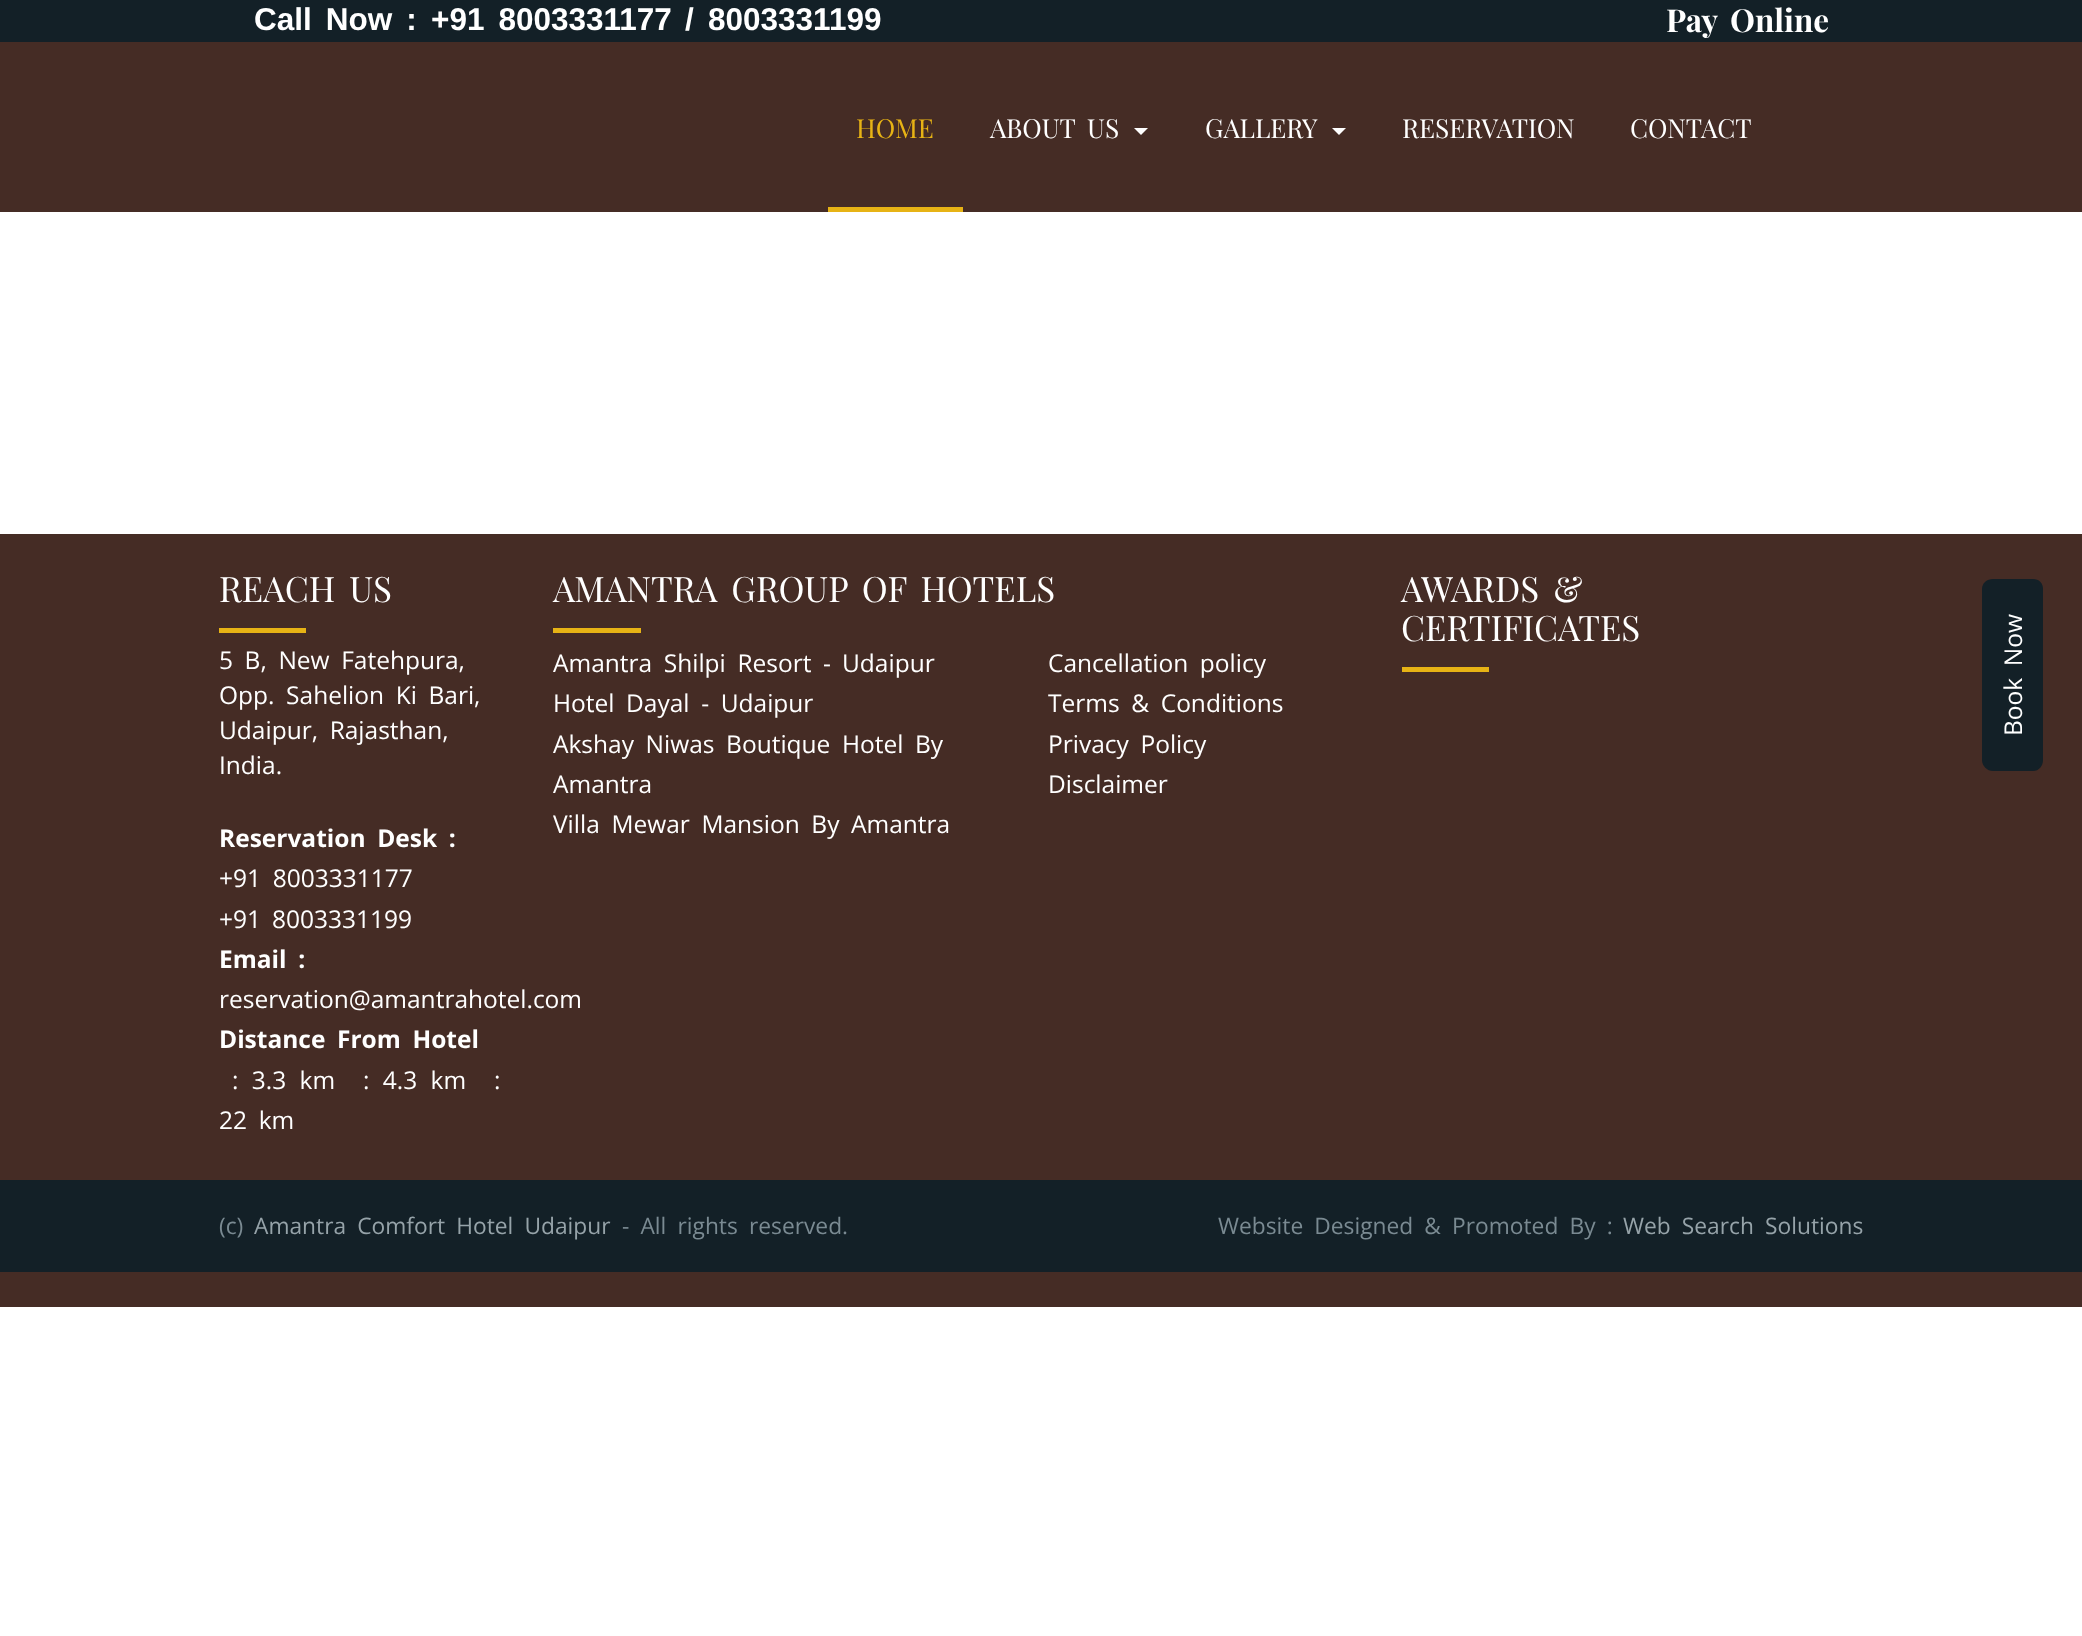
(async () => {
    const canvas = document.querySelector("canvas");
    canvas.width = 2082;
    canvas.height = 1636;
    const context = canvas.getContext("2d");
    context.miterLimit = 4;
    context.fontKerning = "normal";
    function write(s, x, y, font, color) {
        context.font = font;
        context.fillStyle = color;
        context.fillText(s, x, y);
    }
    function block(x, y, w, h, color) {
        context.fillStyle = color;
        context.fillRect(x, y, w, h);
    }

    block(0, 0, 2082, 1636, "rgb(255, 255, 255)");
    block(0, 42, 2082, 170, "rgb(69, 44, 37)");
    block(0, 0, 2082, 42, "rgb(19, 32, 39)");
    context.wordSpacing = "5.25px";
    write("Call Now :", 254, 30, "bold 31.5px Liberation Sans", "rgb(255, 255, 255)");
    write("+91 8003331177", 431, 30, "bold 31.5px Liberation Sans", "rgb(255, 255, 255)");
    context.wordSpacing = "0px";
    write("/", 685, 30, "bold 31.5px Liberation Sans", "rgb(255, 255, 255)");
    write("8003331199", 708, 30, "bold 31.5px Liberation Sans", "rgb(255, 255, 255)");
    context.wordSpacing = "5.25px";
    write("Pay Online", 1666, 32, "bold 31.5px Playfair Display", "rgb(255, 255, 255)");
    block(828, 207, 135, 5, "rgb(231, 179, 21)");
    context.wordSpacing = "0px";
    write("HOME", 856, 138, "26.25px Playfair Display", "rgb(231, 179, 21)");
    context.wordSpacing = "5.25px";
    write("ABOUT US", 990, 138, "26.25px Playfair Display", "rgb(255, 255, 255)");
    context.beginPath();
    context.moveTo(1134, 128);
    context.lineTo(1148, 128);
    context.lineTo(1141, 135);
    context.closePath();
    context.fill();
    context.wordSpacing = "0px";
    write("GALLERY", 1205, 138, "26.25px Playfair Display", "rgb(255, 255, 255)");
    context.beginPath();
    context.moveTo(1332, 128);
    context.lineTo(1346, 128);
    context.lineTo(1339, 135);
    context.closePath();
    context.fill();
    write("RESERVATION", 1402, 138, "26.25px Playfair Display", "rgb(255, 255, 255)");
    write("CONTACT", 1630, 138, "26.25px Playfair Display", "rgb(255, 255, 255)");
    block(0, 534, 2082, 773, "rgb(69, 44, 37)");
    context.wordSpacing = "5.25px";
    write("REACH US", 219, 602, "35px Playfair Display", "rgb(255, 255, 255)");
    block(219, 628, 87, 5, "rgb(231, 179, 21)");
    write("5 B, New Fatehpura,", 219, 669, "24.5px Open Sans", "rgb(255, 255, 255)");
    write("Opp. Sahelion Ki Bari,", 219, 704, "24.5px Open Sans", "rgb(255, 255, 255)");
    write("Udaipur, Rajasthan,", 219, 739, "24.5px Open Sans", "rgb(255, 255, 255)");
    context.wordSpacing = "0px";
    write("India.", 219, 774, "24.5px Open Sans", "rgb(255, 255, 255)");
    context.wordSpacing = "5.25px";
    write("Reservation Desk :", 219, 847, "bold 24.5px Open Sans", "rgb(255, 255, 255)");
    write("+91 8003331177", 219, 887, "24.5px Open Sans", "rgb(255, 255, 255)");
    context.wordSpacing = "0px";
    write("+91", 219, 928, "24.5px Open Sans", "rgb(255, 255, 255)");
    write("8003331199", 272, 928, "24.5px Open Sans", "rgb(255, 255, 255)");
    context.wordSpacing = "5.25px";
    write("Email :", 219, 968, "bold 24.5px Open Sans", "rgb(255, 255, 255)");
    context.wordSpacing = "0px";
    write("reservation@amantrahotel.com", 219, 1008, "24.5px Open Sans", "rgb(255, 255, 255)");
    context.wordSpacing = "5.25px";
    write("Distance From Hotel", 219, 1048, "bold 24.5px Open Sans", "rgb(255, 255, 255)");
    context.wordSpacing = "7px";
    write(": 3.3 km", 232, 1089, "24.5px Open Sans", "rgb(255, 255, 255)");
    write(": 4.3 km", 363, 1089, "24.5px Open Sans", "rgb(255, 255, 255)");
    context.wordSpacing = "0px";
    write(":", 494, 1089, "24.5px Open Sans", "rgb(255, 255, 255)");
    context.wordSpacing = "5.25px";
    write("22 km", 219, 1129, "24.5px Open Sans", "rgb(255, 255, 255)");
    write("AMANTRA GROUP OF HOTELS", 553, 602, "35px Playfair Display", "rgb(255, 255, 255)");
    block(553, 628, 88, 5, "rgb(231, 179, 21)");
    write("Amantra Shilpi Resort -", 553, 672, "24.5px Open Sans", "rgb(255, 255, 255)");
    context.wordSpacing = "0px";
    write("Udaipur", 842, 672, "24.5px Open Sans", "rgb(255, 255, 255)");
    context.wordSpacing = "5.25px";
    write("Hotel Dayal - Udaipur", 553, 712, "24.5px Open Sans", "rgb(255, 255, 255)");
    write("Akshay Niwas Boutique Hotel", 553, 753, "24.5px Open Sans", "rgb(255, 255, 255)");
    context.wordSpacing = "0px";
    write("By", 915, 753, "24.5px Open Sans", "rgb(255, 255, 255)");
    write("Amantra", 553, 793, "24.5px Open Sans", "rgb(255, 255, 255)");
    context.wordSpacing = "5.25px";
    write("Villa Mewar Mansion By Amantra", 553, 833, "24.5px Open Sans", "rgb(255, 255, 255)");
    write("Cancellation policy", 1048, 672, "24.5px Open Sans", "rgb(255, 255, 255)");
    write("Terms & Conditions", 1048, 712, "24.5px Open Sans", "rgb(255, 255, 255)");
    write("Privacy Policy", 1048, 753, "24.5px Open Sans", "rgb(255, 255, 255)");
    context.wordSpacing = "0px";
    write("Disclaimer", 1048, 793, "24.5px Open Sans", "rgb(255, 255, 255)");
    context.wordSpacing = "5.25px";
    write("AWARDS &", 1401, 602, "35px Playfair Display", "rgb(255, 255, 255)");
    context.wordSpacing = "0px";
    write("CERTIFICATES", 1401, 641, "35px Playfair Display", "rgb(255, 255, 255)");
    block(1402, 667, 87, 5, "rgb(231, 179, 21)");
    block(0, 1180, 2082, 92, "rgb(19, 32, 39)");
    write("(c)", 219, 1234, "22.75px Open Sans", "rgb(122, 138, 146)");
    context.wordSpacing = "5.25px";
    write("Amantra Comfort Hotel Udaipur", 254, 1234, "22.75px Open Sans", "rgb(150, 163, 169)");
    write("- All rights", 622, 1234, "22.75px Open Sans", "rgb(122, 138, 146)");
    context.wordSpacing = "0px";
    write("reserved.", 749, 1234, "22.75px Open Sans", "rgb(122, 138, 146)");
    context.wordSpacing = "5.25px";
    write("Website Designed & Promoted By :", 1218, 1234, "22.75px Open Sans", "rgb(122, 138, 146)");
    write("Web Search Solutions", 1623, 1234, "22.75px Open Sans", "rgb(150, 163, 169)");
    context.fillStyle = "rgb(19, 32, 39)";
    context.beginPath();
    context.moveTo(1982, 760);
    context.lineTo(1982, 589);
    context.bezierCurveTo(1982, 583, 1987, 579, 1993, 579);
    context.lineTo(2033, 579);
    context.bezierCurveTo(2039, 579, 2043, 583, 2043, 589);
    context.lineTo(2043, 760);
    context.bezierCurveTo(2043, 766, 2039, 771, 2033, 771);
    context.lineTo(1993, 771);
    context.bezierCurveTo(1987, 771, 1982, 766, 1982, 760);
    context.closePath();
    context.fill();
    context.font = "24.5px Open Sans";
    context.fillStyle = "rgb(255, 255, 255)";
    context.save();
    context.translate(2022, 736);
    context.rotate(-90 * Math.PI / 180);
    context.fillText("Book Now", 0, 0);
    context.restore();
})();
